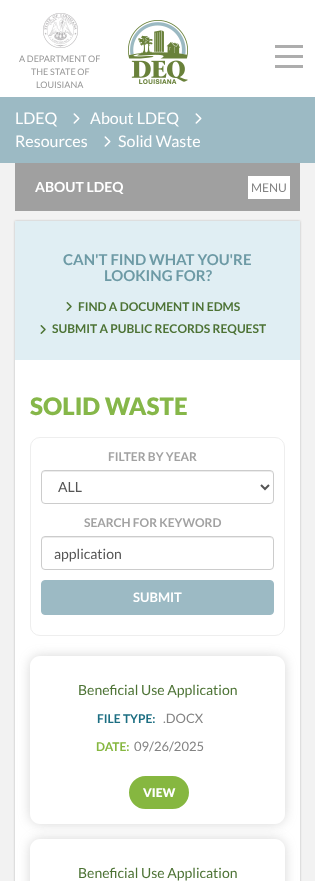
(async () => {
    const canvas = document.querySelector("canvas");
    canvas.width = 315;
    canvas.height = 881;
    const context = canvas.getContext("2d");
    context.miterLimit = 4;
    context.fontKerning = "normal";
    function write(s, x, y, font, color) {
        context.font = font;
        context.fillStyle = color;
        context.fillText(s, x, y);
    }
    function block(x, y, w, h, color) {
        context.fillStyle = color;
        context.fillRect(x, y, w, h);
    }
    async function photo(src, x, y, w, h) {
        const img = new Image();
        img.src = src;
        await img.decode();
        context.drawImage(img, x, y, w, h);
    }

    block(0, 0, 315, 881, "rgb(242, 242, 242)");
    block(0, 0, 315, 97, "rgb(255, 255, 255)");
    await photo("media/1.png", 43, 13, 35, 35);
    write("A DEPARTMENT OF", 19, 62, "9px Lato", "rgb(151, 151, 151)");
    write("THE STATE OF", 31, 75, "9px Lato", "rgb(151, 151, 151)");
    write("LOUISIANA", 36, 88, "9px Lato", "rgb(151, 151, 151)");
    await photo("media/2.png", 128, 20, 60, 64);
    block(275, 55, 28, 3, "rgb(173, 173, 173)");
    block(275, 45, 28, 3, "rgb(173, 173, 173)");
    block(275, 65, 28, 3, "rgb(173, 173, 173)");
    block(0, 97, 315, 66, "rgb(156, 186, 196)");
    write("LDEQ", 15, 124, "16px Lato", "rgb(255, 255, 255)");
    await photo("media/3.png", 73, 113, 7, 11);
    write("About LDEQ", 90, 124, "16px Lato", "rgb(255, 255, 255)");
    await photo("media/3.png", 195, 113, 7, 11);
    write("Resources", 15, 147, "16px Lato", "rgb(255, 255, 255)");
    await photo("media/3.png", 104, 136, 7, 11);
    write("Solid Waste", 118, 147, "16px Lato", "rgb(255, 255, 255)");
    block(15, 163, 285, 48, "rgb(160, 160, 160)");
    write("ABOUT LDEQ", 35, 192, "bold 14px Lato", "rgb(255, 255, 255)");
    block(248, 176, 42, 23, "rgb(255, 255, 255)");
    write("MENU", 251, 192, "12px Lato", "rgb(131, 131, 131)");
    context.fillStyle = "rgb(183, 183, 183)";
    context.filter = "blur(1px)";
    context.beginPath();
    context.rect(15, 221, 285, 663);
    context.fill();
    context.filter = "none";
    block(15, 360, 285, 521, "rgb(255, 255, 255)");
    block(15, 221, 285, 139, "rgb(224, 238, 243)");
    write("CAN'T FIND WHAT YOU'RE", 63, 265, "bold 15px Lato", "rgb(109, 154, 165)");
    write("LOOKING FOR?", 104, 281, "bold 15px Lato", "rgb(109, 154, 165)");
    await photo("media/4.png", 66, 302, 6, 9);
    write("FIND A DOCUMENT IN EDMS", 78, 311, "bold 12px Lato", "rgb(77, 115, 53)");
    await photo("media/4.png", 40, 325, 6, 9);
    write("SUBMIT A PUBLIC RECORDS REQUEST", 52, 333, "bold 12px Lato", "rgb(77, 115, 53)");
    write("SOLID WASTE", 30, 415, "900 24px Lato", "rgb(134, 183, 73)");
    context.beginPath();
    context.roundRect(30.5, 437.5, 254, 198, 9.5);
    context.strokeStyle = "rgb(238, 238, 238)";
    context.stroke();
    write("FILTER BY YEAR", 108, 461, "bold 12px Lato", "rgb(162, 162, 162)");
    context.fillStyle = "rgb(236, 236, 236)";
    context.beginPath();
    context.moveTo(45, 472);
    context.lineTo(270, 472);
    context.bezierCurveTo(272, 472, 273, 473, 273, 475);
    context.bezierCurveTo(273, 473, 272, 471, 270, 471);
    context.lineTo(45, 471);
    context.bezierCurveTo(43, 471, 42, 473, 42, 475);
    context.bezierCurveTo(42, 473, 43, 472, 45, 472);
    context.closePath();
    context.fill();
    context.beginPath();
    context.roundRect(41.5, 470.5, 232, 33, 3.5);
    context.strokeStyle = "rgb(204, 204, 204)";
    context.stroke();
    context.beginPath();
    context.moveTo(261, 485);
    context.lineTo(265, 489);
    context.lineTo(269, 485);
    context.strokeStyle = "rgb(85, 85, 85)";
    context.lineWidth = 2;
    context.stroke();
    write("ALL", 58, 492, "14px Lato", "rgb(85, 85, 85)");
    write("SEARCH FOR KEYWORD", 84, 527, "bold 12px Lato", "rgb(162, 162, 162)");
    context.fillStyle = "rgb(236, 236, 236)";
    context.beginPath();
    context.moveTo(45, 538);
    context.lineTo(270, 538);
    context.bezierCurveTo(272, 538, 273, 539, 273, 541);
    context.bezierCurveTo(273, 539, 272, 537, 270, 537);
    context.lineTo(45, 537);
    context.bezierCurveTo(43, 537, 42, 539, 42, 541);
    context.bezierCurveTo(42, 539, 43, 538, 45, 538);
    context.closePath();
    context.fill();
    context.beginPath();
    context.roundRect(41.5, 536.5, 232, 33, 3.5);
    context.strokeStyle = "rgb(204, 204, 204)";
    context.lineWidth = 1;
    context.stroke();
    write("application", 54, 559, "14px Lato", "rgb(85, 85, 85)");
    context.fillStyle = "rgb(156, 186, 196)";
    context.beginPath();
    context.roundRect(41.5, 580.5, 232, 34, 3.5);
    context.fill();
    context.strokeStyle = "rgb(156, 186, 196)";
    context.stroke();
    write("SUBMIT", 133, 602, "bold 13px Lato", "rgb(255, 255, 255)");
    context.save();
    context.beginPath();
    context.moveTo(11, 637);
    context.lineTo(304, 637);
    context.lineTo(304, 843);
    context.lineTo(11, 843);
    context.closePath();
    context.moveTo(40, 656);
    context.lineTo(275, 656);
    context.bezierCurveTo(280.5, 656, 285, 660.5, 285, 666);
    context.lineTo(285, 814);
    context.bezierCurveTo(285, 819.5, 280.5, 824, 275, 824);
    context.lineTo(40, 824);
    context.bezierCurveTo(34.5, 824, 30, 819.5, 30, 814);
    context.lineTo(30, 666);
    context.bezierCurveTo(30, 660.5, 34.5, 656, 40, 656);
    context.closePath();
    context.clip("evenodd");
    context.fillStyle = "rgba(121, 121, 121, 0.3)";
    context.filter = "blur(6px)";
    context.beginPath();
    context.roundRect(30, 656, 255, 168, 10);
    context.fill();
    context.filter = "none";
    context.restore();
    write("Beneficial Use Application", 78, 695, "14px Lato", "rgb(77, 115, 53)");
    write("FILE TYPE:", 97, 723, "bold 12px Lato", "rgb(28, 110, 130)");
    write(".DOCX", 163, 723, "13px Lato", "rgb(131, 131, 131)");
    write("DATE:", 96, 751, "bold 12px Lato", "rgb(134, 183, 64)");
    write("09/26/2025", 134, 751, "13px Lato", "rgb(131, 131, 131)");
    context.fillStyle = "rgb(134, 183, 64)";
    context.beginPath();
    context.roundRect(130, 777, 58, 31, 15.5);
    context.fill();
    context.strokeStyle = "rgb(134, 183, 64)";
    context.lineWidth = 2;
    context.stroke();
    write("VIEW", 143, 797, "900 12px Lato", "rgb(255, 255, 255)");
    context.save();
    context.beginPath();
    context.moveTo(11, 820);
    context.lineTo(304, 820);
    context.lineTo(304, 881);
    context.lineTo(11, 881);
    context.closePath();
    context.moveTo(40, 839);
    context.lineTo(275, 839);
    context.bezierCurveTo(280.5, 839, 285, 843.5, 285, 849);
    context.lineTo(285, 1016);
    context.bezierCurveTo(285, 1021.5, 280.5, 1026, 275, 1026);
    context.lineTo(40, 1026);
    context.bezierCurveTo(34.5, 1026, 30, 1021.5, 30, 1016);
    context.lineTo(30, 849);
    context.bezierCurveTo(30, 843.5, 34.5, 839, 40, 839);
    context.closePath();
    context.clip("evenodd");
    context.fillStyle = "rgba(121, 121, 121, 0.3)";
    context.filter = "blur(6px)";
    context.beginPath();
    context.roundRect(30, 839, 255, 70, 10);
    context.fill();
    context.filter = "none";
    context.restore();
    write("Beneficial Use Application", 78, 878, "14px Lato", "rgb(77, 115, 53)");
})();
